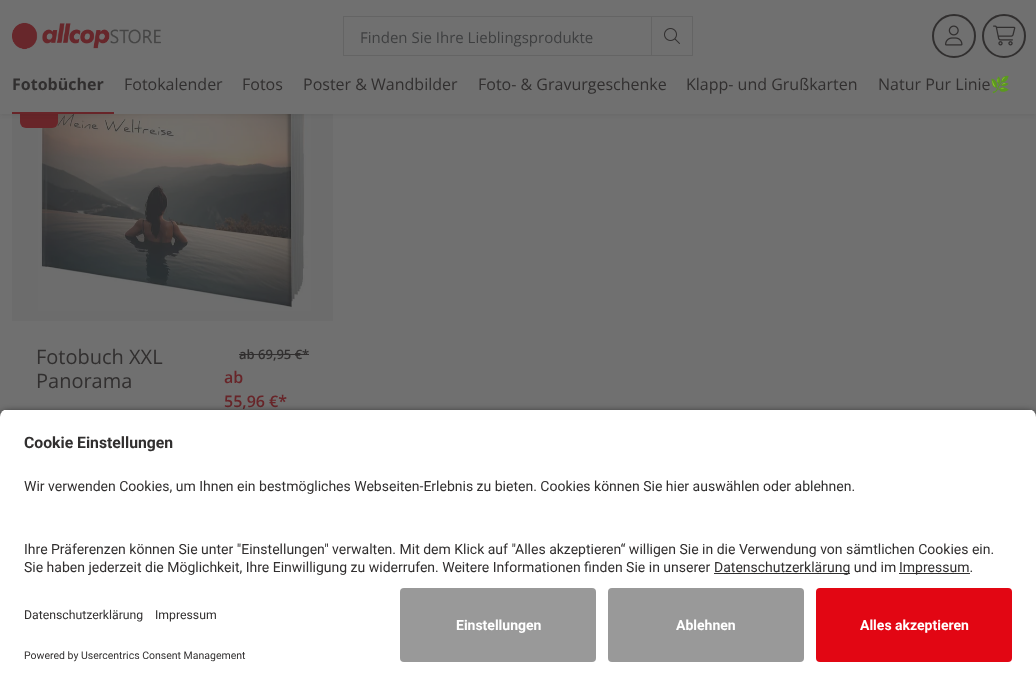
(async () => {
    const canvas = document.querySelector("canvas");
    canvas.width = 1036;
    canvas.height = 686;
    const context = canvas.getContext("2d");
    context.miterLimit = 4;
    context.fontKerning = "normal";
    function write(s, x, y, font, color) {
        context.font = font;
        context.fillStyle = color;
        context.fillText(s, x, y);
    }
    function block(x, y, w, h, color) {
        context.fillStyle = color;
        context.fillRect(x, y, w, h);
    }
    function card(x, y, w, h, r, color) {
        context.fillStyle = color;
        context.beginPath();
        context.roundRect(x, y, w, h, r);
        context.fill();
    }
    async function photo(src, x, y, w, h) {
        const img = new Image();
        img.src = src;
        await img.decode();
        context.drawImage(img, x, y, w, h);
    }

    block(0, 0, 1036, 686, "rgb(112, 112, 112)");
    block(12, 114, 321, 207, "rgb(108, 108, 108)");
    await photo("media/5.png", 38, 114, 273, 197);
    card(20, 88, 38, 40, 6, "rgb(104, 37, 41)");
    context.fillStyle = "rgba(36, 36, 36, 0.15)";
    context.filter = "blur(2.5px)";
    context.beginPath();
    context.rect(0, 0, 1036, 114);
    context.fill();
    context.filter = "none";
    block(0, 0, 1036, 114, "rgb(112, 112, 112)");
    await photo("media/1.png", 12, 22, 149, 28);
    context.strokeStyle = "rgb(100, 100, 100)";
    context.strokeRect(651.5, 16.5, 41, 39);
    context.strokeRect(343.5, 16.5, 308, 39);
    write("Finden Sie Ihre Lieblingsprodukte", 360, 43, "15px Open Sans", "rgb(62, 63, 64)");
    await photo("media/2.png", 664, 28, 16, 16);
    context.beginPath();
    context.arc(954, 36, 21, 0, Math.PI * 2);
    context.strokeStyle = "rgb(49, 47, 47)";
    context.lineWidth = 2;
    context.stroke();
    await photo("media/3.png", 945, 25, 18, 21);
    context.beginPath();
    context.arc(1004, 36, 21, 0, Math.PI * 2);
    context.stroke();
    await photo("media/4.png", 993, 25, 23, 21);
    block(12, 112, 102, 2, "rgb(104, 37, 41)");
    write("Fotobücher", 12, 90, "bold 16px Open Sans", "rgb(49, 47, 47)");
    write("Fotokalender", 124, 90, "16px Open Sans", "rgb(49, 47, 47)");
    write("Fotos", 242, 90, "16px Open Sans", "rgb(49, 47, 47)");
    write("Poster & Wandbilder", 303, 90, "16px Open Sans", "rgb(49, 47, 47)");
    write("Foto- & Gravurgeschenke", 478, 90, "16px Open Sans", "rgb(49, 47, 47)");
    write("Klapp- und Grußkarten", 686, 90, "16px Open Sans", "rgb(49, 47, 47)");
    write("Natur Pur Linie", 878, 90, "16px Open Sans", "rgb(49, 47, 47)");
    write("🌿", 990, 90, "16px Noto Color Emoji", "rgb(49, 47, 47)");
    write("Fotobuch XXL", 36, 364, "20px Open Sans", "rgb(49, 47, 47)");
    write("Panorama", 36, 388, "20px Open Sans", "rgb(49, 47, 47)");
    write("ab 69,95 €*", 239, 359, "600 13px Open Sans", "rgb(49, 47, 47)");
    block(239, 354, 70, 1, "rgb(49, 47, 47)");
    write("ab", 224, 383, "600 16px Open Sans", "rgb(104, 37, 41)");
    write("55,96 €*", 224, 407, "600 16px Open Sans", "rgb(104, 37, 41)");
    context.fillStyle = "rgba(0, 0, 0, 0.8)";
    context.filter = "blur(3.5px)";
    context.beginPath();
    context.roundRect(0, 412, 1036, 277, 8);
    context.fill();
    context.filter = "none";
    context.save();
    context.beginPath();
    context.roundRect(0, 409, 1036, 171, [8, 8, 0, 0]);
    context.clip();
    block(0, 410, 1036, 170, "rgb(255, 255, 255)");
    context.restore();
    write("Cookie Einstellungen", 24, 448, "bold 15.75px Roboto", "rgb(49, 47, 47)");
    write("Wir verwenden Cookies, um Ihnen ein bestmögliches Webseiten-Erlebnis zu bieten. Cookies können Sie hier auswählen oder ablehnen.", 24, 491, "14px Roboto", "rgb(49, 47, 47)");
    write("Ihre Präferenzen können Sie unter \"Einstellungen\" verwalten. Mit dem Klick auf \"Alles akzeptieren“ willigen Sie in die Verwendung von sämtlichen Cookies ein.", 24, 554, "14px Roboto", "rgb(49, 47, 47)");
    write("Sie haben jederzeit die Möglichkeit, Ihre Einwilligung zu widerrufen. Weitere Informationen finden Sie in unserer", 24, 572, "14px Roboto", "rgb(49, 47, 47)");
    block(714, 573, 136, 1, "rgb(48, 48, 48)");
    write("Datenschutzerklärung und im", 714, 572, "14px Roboto", "rgb(49, 47, 47)");
    block(899, 573, 71, 1, "rgb(48, 48, 48)");
    write("Impressum.", 899, 572, "14px Roboto", "rgb(49, 47, 47)");
    block(0, 580, 1036, 106, "rgb(255, 255, 255)");
    write("Datenschutzerklärung", 24, 619, "12.25px Roboto", "rgb(49, 47, 47)");
    write("Impressum", 155, 619, "12.25px Roboto", "rgb(49, 47, 47)");
    write("Powered by Usercentrics Consent Management", 24, 659, "10.5px Roboto", "rgb(49, 47, 47)");
    card(400, 588, 196, 74, 4, "rgb(153, 153, 153)");
    write("Einstellungen", 456, 630, "bold 14px Roboto", "rgb(255, 255, 255)");
    card(608, 588, 196, 74, 4, "rgb(153, 153, 153)");
    write("Ablehnen", 676, 630, "bold 14px Roboto", "rgb(255, 255, 255)");
    card(816, 588, 196, 74, 4, "rgb(226, 6, 19)");
    write("Alles akzeptieren", 860, 630, "bold 14px Roboto", "rgb(255, 255, 255)");
})();
